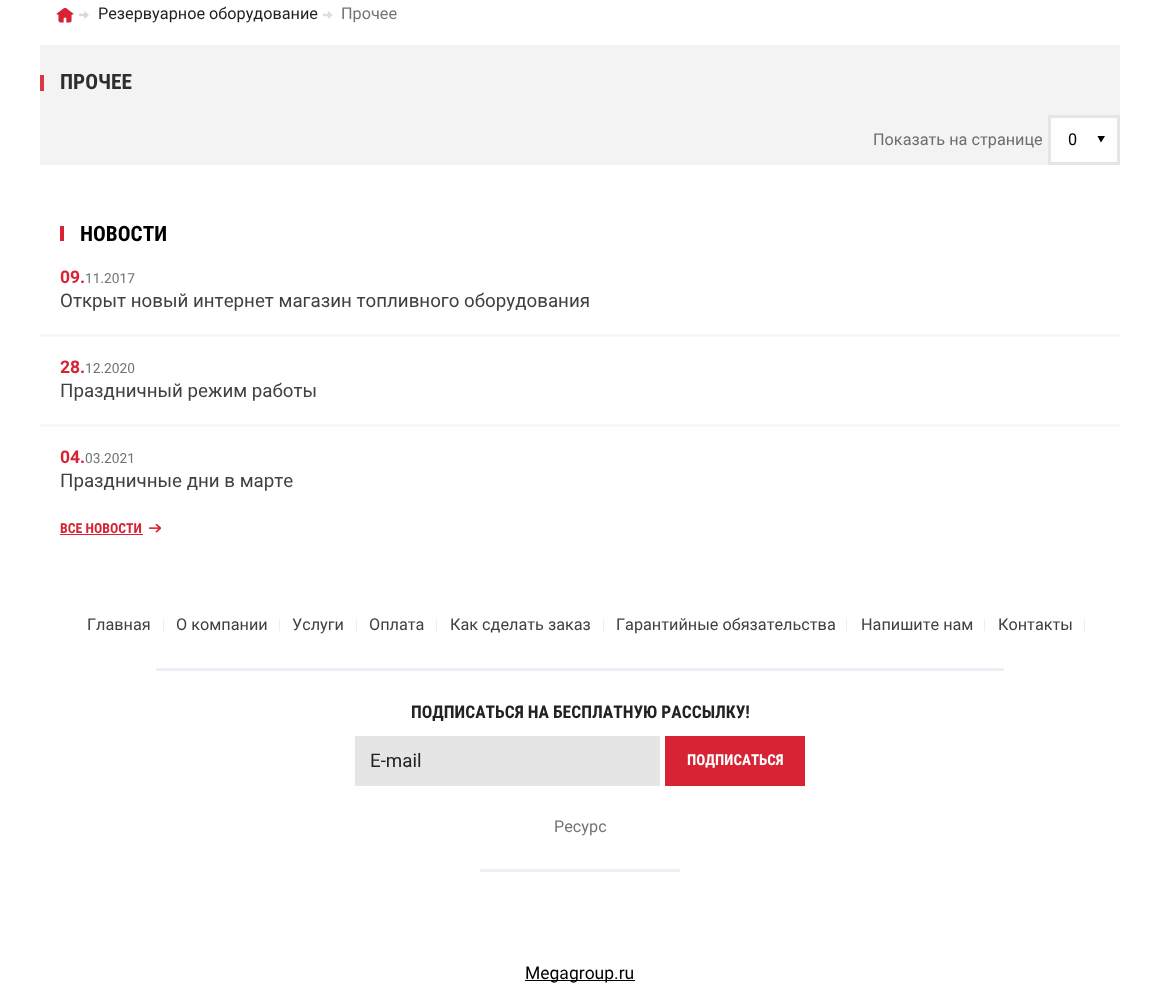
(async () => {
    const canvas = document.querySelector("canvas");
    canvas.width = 1159;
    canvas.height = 1002;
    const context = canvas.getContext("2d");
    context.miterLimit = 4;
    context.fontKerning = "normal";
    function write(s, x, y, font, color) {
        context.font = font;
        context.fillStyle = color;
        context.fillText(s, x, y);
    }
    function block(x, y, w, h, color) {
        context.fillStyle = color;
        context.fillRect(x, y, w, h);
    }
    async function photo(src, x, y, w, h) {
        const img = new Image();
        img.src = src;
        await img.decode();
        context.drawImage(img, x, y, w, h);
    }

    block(0, 0, 1159, 1002, "rgb(255, 255, 255)");
    block(40, 45, 1080, 120, "rgb(243, 243, 243)");
    await photo("media/1.png", 56, 8, 18, 15);
    await photo("media/2.png", 79, 11, 10, 8);
    write("Резервуарное оборудование", 98, 19, "16.25px Roboto", "rgb(34, 34, 34)");
    await photo("media/3.png", 323, 11, 10, 8);
    write("Прочее", 341, 19, "16.25px Roboto", "rgb(115, 115, 115)");
    block(40, 75, 4, 16, "rgb(218, 56, 71)");
    write("ПРОЧЕЕ", 60, 89, "bold 21.25px Roboto Condensed", "rgb(46, 46, 46)");
    write("Показать на странице", 873, 145, "16.25px Roboto", "rgb(109, 109, 109)");
    context.fillStyle = "rgb(255, 255, 255)";
    context.beginPath();
    context.rect(1049.5, 116.5, 69, 47);
    context.fill();
    context.strokeStyle = "rgb(229, 229, 229)";
    context.lineWidth = 3;
    context.stroke();
    write("0", 1068, 145, "16.25px Roboto", "rgb(0, 0, 0)");
    context.beginPath();
    context.moveTo(1097.5, 136);
    context.lineTo(1105, 136);
    context.lineTo(1101, 142.5);
    context.closePath();
    context.fill();
    block(60, 226, 4, 15, "rgb(215, 35, 52)");
    write("НОВОСТИ", 80, 241, "bold 21.25px Roboto Condensed", "rgb(0, 0, 0)");
    block(40, 334, 1080, 3, "rgb(247, 247, 247)");
    write("09.", 60, 283, "bold 17.5px Roboto", "rgb(215, 35, 52)");
    write("11.2017", 85, 283, "13.75px Roboto", "rgb(115, 115, 115)");
    write("Открыт новый интернет магазин топливного оборудования", 60, 307, "18.75px Roboto", "rgb(64, 64, 64)");
    block(40, 424, 1080, 3, "rgb(247, 247, 247)");
    write("28.", 60, 373, "bold 17.5px Roboto", "rgb(215, 35, 52)");
    write("12.2020", 85, 373, "13.75px Roboto", "rgb(115, 115, 115)");
    write("Праздничный режим работы", 60, 397, "18.75px Roboto", "rgb(64, 64, 64)");
    write("04.", 60, 463, "bold 17.5px Roboto", "rgb(215, 35, 52)");
    write("03.2021", 85, 463, "13.75px Roboto", "rgb(115, 115, 115)");
    write("Праздничные дни в марте", 60, 487, "18.75px Roboto", "rgb(64, 64, 64)");
    await photo("media/4.png", 149, 524, 12, 9);
    write("ВСЕ НОВОСТИ", 60, 533, "bold 13.75px Roboto Condensed", "rgb(215, 35, 52)");
    block(60, 534, 83, 1, "rgb(215, 35, 52)");
    write("Главная", 87, 630, "16.25px Roboto", "rgb(64, 64, 64)");
    block(163, 619, 1, 12, "rgb(235, 238, 244)");
    write("О компании", 176, 630, "16.25px Roboto", "rgb(64, 64, 64)");
    block(279, 619, 1, 12, "rgb(235, 238, 244)");
    write("Услуги", 292, 630, "16.25px Roboto", "rgb(64, 64, 64)");
    block(356, 619, 1, 12, "rgb(235, 238, 244)");
    write("Оплата", 369, 630, "16.25px Roboto", "rgb(64, 64, 64)");
    block(436, 619, 1, 12, "rgb(235, 238, 244)");
    write("Как сделать заказ", 450, 630, "16.25px Roboto", "rgb(64, 64, 64)");
    block(603, 619, 1, 12, "rgb(235, 238, 244)");
    write("Гарантийные обязательства", 616, 630, "16.25px Roboto", "rgb(64, 64, 64)");
    block(846, 619, 1, 12, "rgb(235, 238, 244)");
    write("Напишите нам", 861, 630, "16.25px Roboto", "rgb(64, 64, 64)");
    block(984, 619, 1, 12, "rgb(235, 238, 244)");
    write("Контакты", 998, 630, "16.25px Roboto", "rgb(64, 64, 64)");
    block(1084, 619, 1, 12, "rgb(235, 238, 244)");
    block(156, 668, 848, 3, "rgb(235, 238, 244)");
    write("ПОДПИСАТЬСЯ НА БЕСПЛАТНУЮ РАССЫЛКУ!", 411, 718, "bold 17.5px Roboto Condensed", "rgb(34, 34, 34)");
    block(355, 736, 305, 50, "rgb(229, 229, 229)");
    write("E-mail", 370, 767, "18.75px Roboto", "rgb(34, 34, 34)");
    block(665, 736, 140, 50, "rgb(215, 35, 52)");
    write("ПОДПИСАТЬСЯ", 687, 765, "bold 15px Roboto Condensed", "rgb(255, 255, 255)");
    write("Ресурс", 554, 832, "16.25px Roboto", "rgb(115, 115, 115)");
    block(480, 869, 200, 3, "rgb(235, 238, 244)");
    block(525, 980, 110, 1, "rgb(0, 0, 0)");
    write("Megagroup.ru", 525, 979, "17.5px Roboto", "rgb(0, 0, 0)");
})();
